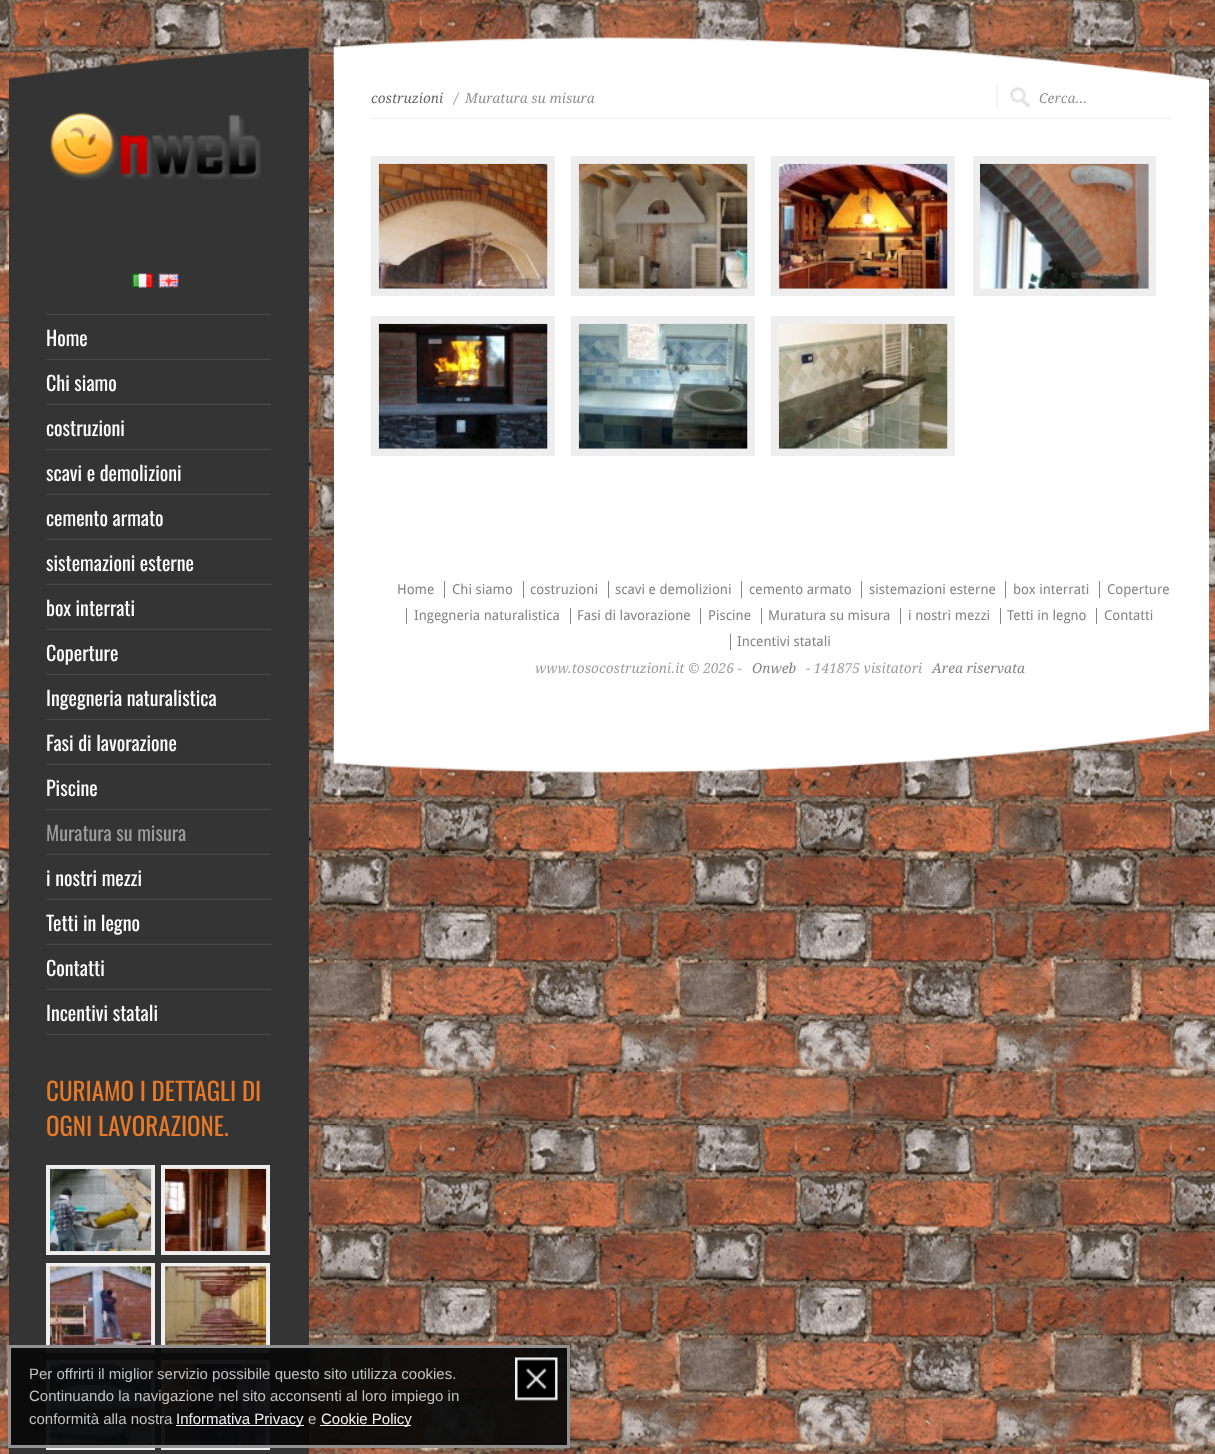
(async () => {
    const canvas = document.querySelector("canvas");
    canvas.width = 1215;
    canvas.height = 1454;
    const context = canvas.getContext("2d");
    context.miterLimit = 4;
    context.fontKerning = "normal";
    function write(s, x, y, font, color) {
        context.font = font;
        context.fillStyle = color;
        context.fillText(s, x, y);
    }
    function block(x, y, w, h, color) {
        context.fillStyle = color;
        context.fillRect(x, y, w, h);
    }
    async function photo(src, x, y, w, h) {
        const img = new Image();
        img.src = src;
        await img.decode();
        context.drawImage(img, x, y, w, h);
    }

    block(0, 0, 1215, 1454, "rgb(255, 255, 255)");
    await photo("media/1.png", 0, 0, 1215, 1454);
    await photo("media/2.png", 8, 47, 301, 33);
    block(9, 80, 300, 1374, "rgb(52, 52, 52)");
    await photo("media/3.png", 50, 112, 211, 68);
    await photo("media/4.png", 132, 273, 21, 15);
    await photo("media/5.png", 158, 273, 21, 15);
    await photo("media/6.png", 46, 313, 226, 2);
    await photo("media/6.png", 46, 358, 226, 2);
    write("Home", 46, 346, "20px Oswald", "rgb(255, 255, 255)");
    await photo("media/6.png", 46, 403, 226, 2);
    write("Chi siamo", 46, 391, "20px Oswald", "rgb(255, 255, 255)");
    await photo("media/6.png", 46, 448, 226, 2);
    write("costruzioni", 46, 436, "20px Oswald", "rgb(255, 255, 255)");
    await photo("media/6.png", 46, 493, 226, 2);
    write("scavi e demolizioni", 46, 481, "20px Oswald", "rgb(255, 255, 255)");
    await photo("media/6.png", 46, 538, 226, 2);
    write("cemento armato", 46, 526, "20px Oswald", "rgb(255, 255, 255)");
    await photo("media/6.png", 46, 583, 226, 2);
    write("sistemazioni esterne", 46, 571, "20px Oswald", "rgb(255, 255, 255)");
    await photo("media/6.png", 46, 628, 226, 2);
    write("box interrati", 46, 616, "20px Oswald", "rgb(255, 255, 255)");
    await photo("media/6.png", 46, 673, 226, 2);
    write("Coperture", 46, 661, "20px Oswald", "rgb(255, 255, 255)");
    await photo("media/6.png", 46, 718, 226, 2);
    write("Ingegneria naturalistica", 46, 706, "20px Oswald", "rgb(255, 255, 255)");
    await photo("media/6.png", 46, 763, 226, 2);
    write("Fasi di lavorazione", 46, 751, "20px Oswald", "rgb(255, 255, 255)");
    await photo("media/6.png", 46, 808, 226, 2);
    write("Piscine", 46, 796, "20px Oswald", "rgb(255, 255, 255)");
    await photo("media/6.png", 46, 853, 226, 2);
    write("Muratura su misura", 46, 841, "20px Oswald", "rgb(157, 157, 157)");
    await photo("media/6.png", 46, 898, 226, 2);
    write("i nostri mezzi", 46, 886, "20px Oswald", "rgb(255, 255, 255)");
    await photo("media/6.png", 46, 943, 226, 2);
    write("Tetti in legno", 46, 931, "20px Oswald", "rgb(255, 255, 255)");
    await photo("media/6.png", 46, 988, 226, 2);
    write("Contatti", 46, 976, "20px Oswald", "rgb(255, 255, 255)");
    await photo("media/6.png", 46, 1033, 226, 2);
    write("Incentivi statali", 46, 1021, "20px Oswald", "rgb(255, 255, 255)");
    write("CURIAMO I DETTAGLI DI", 46, 1101, "25px Oswald", "rgb(231, 121, 39)");
    write("OGNI LAVORAZIONE.", 46, 1136, "25px Oswald", "rgb(231, 121, 39)");
    block(46, 1165, 109, 90, "rgb(238, 238, 238)");
    await photo("media/7.png", 50, 1168, 102, 84);
    block(161, 1165, 109, 90, "rgb(238, 238, 238)");
    await photo("media/8.png", 165, 1168, 102, 84);
    block(46, 1263, 109, 90, "rgb(238, 238, 238)");
    await photo("media/9.png", 50, 1266, 102, 83);
    block(161, 1263, 109, 90, "rgb(238, 238, 238)");
    await photo("media/10.png", 165, 1266, 102, 83);
    block(46, 1360, 109, 90, "rgb(238, 238, 238)");
    await photo("media/11.png", 50, 1363, 102, 84);
    block(161, 1360, 109, 90, "rgb(238, 238, 238)");
    await photo("media/12.png", 165, 1363, 102, 84);
    await photo("media/13.png", 333, 37, 876, 43);
    block(334, 80, 875, 650, "rgb(255, 255, 255)");
    block(371, 118, 800, 1, "rgb(238, 238, 238)");
    write("costruzioni", 371, 103, "italic 13.75px Droid Serif", "rgb(102, 102, 102)");
    write("/", 454, 103, "italic 13.75px Droid Serif", "rgb(146, 146, 146)");
    write("Muratura su misura", 465, 103, "italic 13.75px Droid Serif", "rgb(146, 146, 146)");
    await photo("media/14.png", 996, 85, 35, 24);
    write("Cerca...", 1039, 103, "italic 13.75px Droid Serif", "rgb(146, 146, 146)");
    block(371, 156, 184, 140, "rgb(238, 238, 238)");
    await photo("media/15.png", 378, 163, 170, 126);
    block(571, 156, 184, 140, "rgb(238, 238, 238)");
    await photo("media/16.png", 578, 163, 170, 126);
    block(771, 156, 184, 140, "rgb(238, 238, 238)");
    await photo("media/17.png", 778, 163, 170, 126);
    block(973, 156, 183, 140, "rgb(238, 238, 238)");
    await photo("media/18.png", 980, 163, 169, 126);
    block(371, 316, 184, 140, "rgb(238, 238, 238)");
    await photo("media/19.png", 378, 323, 170, 126);
    block(571, 316, 184, 140, "rgb(238, 238, 238)");
    await photo("media/20.png", 578, 323, 170, 126);
    block(771, 316, 184, 140, "rgb(238, 238, 238)");
    await photo("media/21.png", 778, 323, 170, 126);
    write("Home", 397, 594, "13.75px Droid Sans", "rgb(132, 132, 132)");
    write("Chi siamo", 452, 594, "13.75px Droid Sans", "rgb(132, 132, 132)");
    block(444, 581, 1, 17, "rgb(132, 132, 132)");
    write("costruzioni", 530, 594, "13.75px Droid Sans", "rgb(132, 132, 132)");
    block(523, 581, 1, 17, "rgb(132, 132, 132)");
    write("scavi e demolizioni", 615, 594, "13.75px Droid Sans", "rgb(132, 132, 132)");
    block(608, 581, 1, 17, "rgb(132, 132, 132)");
    write("cemento armato", 749, 594, "13.75px Droid Sans", "rgb(132, 132, 132)");
    block(741, 581, 1, 17, "rgb(132, 132, 132)");
    write("sistemazioni esterne", 869, 594, "13.75px Droid Sans", "rgb(132, 132, 132)");
    block(861, 581, 1, 17, "rgb(132, 132, 132)");
    write("box interrati", 1013, 594, "13.75px Droid Sans", "rgb(132, 132, 132)");
    block(1005, 581, 1, 17, "rgb(132, 132, 132)");
    write("Coperture", 1107, 594, "13.75px Droid Sans", "rgb(132, 132, 132)");
    block(1099, 581, 1, 17, "rgb(132, 132, 132)");
    write("Ingegneria naturalistica", 414, 620, "13.75px Droid Sans", "rgb(132, 132, 132)");
    block(406, 608, 1, 16, "rgb(132, 132, 132)");
    write("Fasi di lavorazione", 577, 620, "13.75px Droid Sans", "rgb(132, 132, 132)");
    block(570, 608, 1, 16, "rgb(132, 132, 132)");
    write("Piscine", 708, 620, "13.75px Droid Sans", "rgb(132, 132, 132)");
    block(700, 608, 1, 16, "rgb(132, 132, 132)");
    write("Muratura su misura", 768, 620, "13.75px Droid Sans", "rgb(132, 132, 132)");
    block(761, 608, 1, 16, "rgb(132, 132, 132)");
    write("i nostri mezzi", 908, 620, "13.75px Droid Sans", "rgb(132, 132, 132)");
    block(900, 608, 1, 16, "rgb(132, 132, 132)");
    write("Tetti in legno", 1007, 620, "13.75px Droid Sans", "rgb(132, 132, 132)");
    block(1000, 608, 1, 16, "rgb(132, 132, 132)");
    write("Contatti", 1104, 620, "13.75px Droid Sans", "rgb(132, 132, 132)");
    block(1096, 608, 1, 16, "rgb(132, 132, 132)");
    write("Incentivi statali", 737, 646, "13.75px Droid Sans", "rgb(132, 132, 132)");
    block(730, 634, 1, 16, "rgb(132, 132, 132)");
    write("www.tosocostruzioni.it © 2026 -", 535, 673, "italic 13.75px Droid Serif", "rgb(157, 157, 157)");
    write("Onweb", 752, 673, "italic 13.75px Droid Serif", "rgb(132, 132, 132)");
    write("- 141875 visitatori", 806, 673, "italic 13.75px Droid Serif", "rgb(157, 157, 157)");
    write("Area riservata", 932, 673, "italic 13.75px Droid Serif", "rgb(132, 132, 132)");
    await photo("media/22.png", 333, 730, 876, 43);
    block(8, 1345, 562, 103, "rgba(10, 10, 10, 0.95)");
    context.strokeStyle = "rgba(153, 153, 153, 0.95)";
    context.lineWidth = 3;
    context.strokeRect(9.5, 1346.5, 559, 100);
    write("Per offrirti il miglior servizio possibile questo sito utilizza cookies.", 29, 1379, "15px Liberation Sans", "rgb(195, 195, 195)");
    await photo("media/23.png", 515, 1357, 43, 44);
    write("Continuando la navigazione nel sito acconsenti al loro impiego in", 29, 1401, "15px Liberation Sans", "rgb(195, 195, 195)");
    write("conformità alla nostra", 29, 1424, "15px Liberation Sans", "rgb(195, 195, 195)");
    block(176, 1425, 128, 1, "rgba(255, 255, 255, 0.95)");
    write("Informativa Privacy", 176, 1424, "15px Liberation Sans", "rgb(243, 243, 243)");
    write("e", 308, 1424, "15px Liberation Sans", "rgb(195, 195, 195)");
    block(320, 1425, 91, 1, "rgba(255, 255, 255, 0.95)");
    write("Cookie Policy", 321, 1424, "15px Liberation Sans", "rgb(243, 243, 243)");
})();
